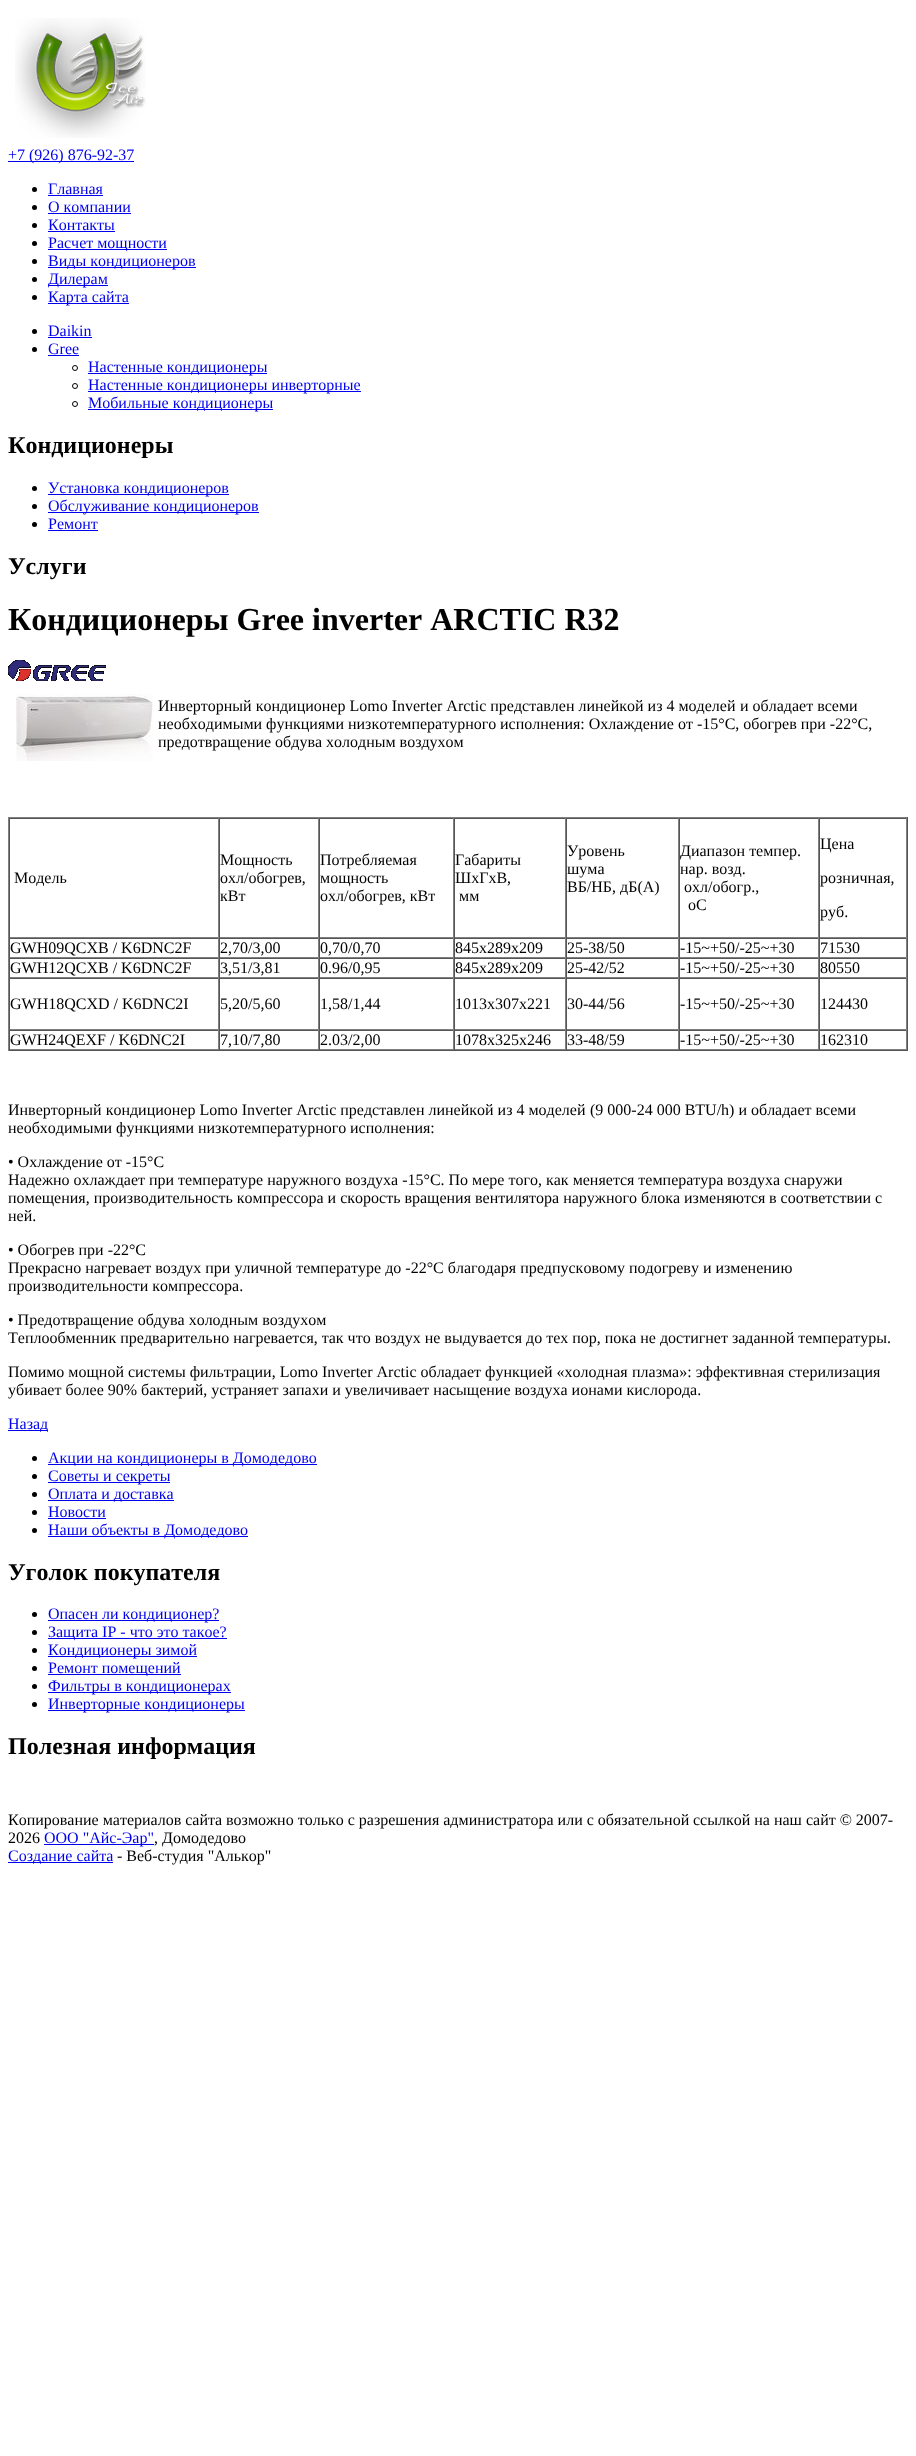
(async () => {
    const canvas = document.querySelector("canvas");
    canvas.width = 916;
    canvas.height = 2456;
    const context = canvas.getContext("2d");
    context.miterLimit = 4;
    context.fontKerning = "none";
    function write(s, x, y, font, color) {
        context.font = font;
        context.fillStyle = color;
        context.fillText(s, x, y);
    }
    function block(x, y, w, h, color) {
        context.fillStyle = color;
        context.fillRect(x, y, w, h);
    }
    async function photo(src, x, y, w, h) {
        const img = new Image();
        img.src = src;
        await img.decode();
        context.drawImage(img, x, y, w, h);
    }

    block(0, 0, 916, 2456, "rgb(255, 255, 255)");
    await photo("media/1.png", 15, 18, 131, 120);
    block(8, 161, 126, 1, "rgb(0, 0, 238)");
    write("+7 (926) 876-92-37", 8, 160, "16px Liberation Serif", "rgb(0, 0, 238)");
    context.fillStyle = "rgb(0, 0, 0)";
    context.beginPath();
    context.arc(34.5, 189.5, 2.5, 0, Math.PI * 2);
    context.fill();
    write("Главная", 48, 194, "16px Liberation Serif", "rgb(0, 0, 238)");
    block(48, 195, 55, 1, "rgb(0, 0, 238)");
    context.fillStyle = "rgb(0, 0, 0)";
    context.beginPath();
    context.arc(34.5, 207.5, 2.5, 0, Math.PI * 2);
    context.fill();
    write("О компании", 48, 212, "16px Liberation Serif", "rgb(0, 0, 238)");
    block(48, 213, 83, 1, "rgb(0, 0, 238)");
    context.fillStyle = "rgb(0, 0, 0)";
    context.beginPath();
    context.arc(34.5, 225.5, 2.5, 0, Math.PI * 2);
    context.fill();
    write("Контакты", 48, 230, "16px Liberation Serif", "rgb(0, 0, 238)");
    block(48, 231, 67, 1, "rgb(0, 0, 238)");
    context.fillStyle = "rgb(0, 0, 0)";
    context.beginPath();
    context.arc(34.5, 243.5, 2.5, 0, Math.PI * 2);
    context.fill();
    block(48, 249, 119, 1, "rgb(0, 0, 238)");
    write("Расчет мощности", 48, 248, "16px Liberation Serif", "rgb(0, 0, 238)");
    context.fillStyle = "rgb(0, 0, 0)";
    context.beginPath();
    context.arc(34.5, 261.5, 2.5, 0, Math.PI * 2);
    context.fill();
    block(48, 267, 148, 1, "rgb(0, 0, 238)");
    write("Виды кондиционеров", 48, 266, "16px Liberation Serif", "rgb(0, 0, 238)");
    context.fillStyle = "rgb(0, 0, 0)";
    context.beginPath();
    context.arc(34.5, 279.5, 2.5, 0, Math.PI * 2);
    context.fill();
    block(48, 285, 60, 1, "rgb(0, 0, 238)");
    write("Дилерам", 48, 284, "16px Liberation Serif", "rgb(0, 0, 238)");
    context.fillStyle = "rgb(0, 0, 0)";
    context.beginPath();
    context.arc(34.5, 297.5, 2.5, 0, Math.PI * 2);
    context.fill();
    block(48, 303, 81, 1, "rgb(0, 0, 238)");
    write("Карта сайта", 48, 302, "16px Liberation Serif", "rgb(0, 0, 238)");
    context.fillStyle = "rgb(0, 0, 0)";
    context.beginPath();
    context.arc(34.5, 331.5, 2.5, 0, Math.PI * 2);
    context.fill();
    write("Daikin", 48, 336, "16px Liberation Serif", "rgb(0, 0, 238)");
    block(48, 337, 44, 1, "rgb(0, 0, 238)");
    context.fillStyle = "rgb(0, 0, 0)";
    context.beginPath();
    context.arc(34.5, 349.5, 2.5, 0, Math.PI * 2);
    context.fill();
    write("Gree", 48, 354, "16px Liberation Serif", "rgb(0, 0, 238)");
    block(48, 355, 31, 1, "rgb(0, 0, 238)");
    context.beginPath();
    context.arc(75, 368, 2.5, 0, Math.PI * 2);
    context.strokeStyle = "rgb(0, 0, 0)";
    context.stroke();
    block(88, 373, 179, 1, "rgb(0, 0, 238)");
    write("Настенные кондиционеры", 88, 372, "16px Liberation Serif", "rgb(0, 0, 238)");
    context.beginPath();
    context.arc(75, 386, 2.5, 0, Math.PI * 2);
    context.stroke();
    block(88, 391, 273, 1, "rgb(0, 0, 238)");
    write("Настенные кондиционеры инверторные", 88, 390, "16px Liberation Serif", "rgb(0, 0, 238)");
    context.beginPath();
    context.arc(75, 404, 2.5, 0, Math.PI * 2);
    context.stroke();
    block(88, 409, 185, 1, "rgb(0, 0, 238)");
    write("Мобильные кондиционеры", 88, 408, "16px Liberation Serif", "rgb(0, 0, 238)");
    write("Кондиционеры", 8, 453, "bold 24px Liberation Serif", "rgb(0, 0, 0)");
    context.beginPath();
    context.arc(34.5, 488.5, 2.5, 0, Math.PI * 2);
    context.fill();
    block(48, 494, 181, 1, "rgb(0, 0, 238)");
    write("Установка кондиционеров", 48, 493, "16px Liberation Serif", "rgb(0, 0, 238)");
    context.fillStyle = "rgb(0, 0, 0)";
    context.beginPath();
    context.arc(34.5, 506.5, 2.5, 0, Math.PI * 2);
    context.fill();
    block(48, 512, 211, 1, "rgb(0, 0, 238)");
    write("Обслуживание кондиционеров", 48, 511, "16px Liberation Serif", "rgb(0, 0, 238)");
    context.fillStyle = "rgb(0, 0, 0)";
    context.beginPath();
    context.arc(34.5, 524.5, 2.5, 0, Math.PI * 2);
    context.fill();
    write("Ремонт", 48, 529, "16px Liberation Serif", "rgb(0, 0, 238)");
    block(48, 530, 50, 1, "rgb(0, 0, 238)");
    write("Услуги", 8, 574, "bold 24px Liberation Serif", "rgb(0, 0, 0)");
    write("Кондиционеры Gree inverter ARCTIC R32", 8, 630, "bold 32px Liberation Serif", "rgb(0, 0, 0)");
    await photo("media/2.png", 8, 660, 98, 21);
    await photo("media/3.png", 16, 694, 137, 67);
    write("Инверторный кондиционер Lomo Inverter Arctic представлен линейкой из 4 моделей", 158, 711, "16px Liberation Serif", "rgb(0, 0, 0)");
    write("и обладает всеми", 740, 711, "16px Liberation Serif", "rgb(0, 0, 0)");
    write("необходимыми функциями низкотемпературного", 158, 729, "16px Liberation Serif", "rgb(0, 0, 0)");
    write("исполнения: Охлаждение от -15°С, обогрев при -22°С,", 500, 729, "16px Liberation Serif", "rgb(0, 0, 0)");
    write("предотвращение обдува холодным воздухом", 158, 747, "16px Liberation Serif", "rgb(0, 0, 0)");
    block(8, 817, 900, 1, "rgb(128, 128, 128)");
    block(907, 817, 1, 234, "rgb(85, 85, 85)");
    block(8, 1050, 900, 1, "rgb(85, 85, 85)");
    block(8, 817, 1, 234, "rgb(128, 128, 128)");
    block(9, 818, 898, 1, "rgb(85, 85, 85)");
    block(218, 818, 1, 120, "rgb(128, 128, 128)");
    block(9, 937, 210, 1, "rgb(128, 128, 128)");
    block(9, 818, 1, 120, "rgb(85, 85, 85)");
    write("Модель", 14, 883, "16px Liberation Serif", "rgb(0, 0, 0)");
    block(318, 818, 1, 120, "rgb(128, 128, 128)");
    block(219, 937, 100, 1, "rgb(128, 128, 128)");
    block(219, 818, 1, 120, "rgb(85, 85, 85)");
    write("Мощность", 220, 865, "16px Liberation Serif", "rgb(0, 0, 0)");
    write("охл/обогрев,", 220, 883, "16px Liberation Serif", "rgb(0, 0, 0)");
    write("кВт", 220, 901, "16px Liberation Serif", "rgb(0, 0, 0)");
    block(453, 818, 1, 120, "rgb(128, 128, 128)");
    block(319, 937, 135, 1, "rgb(128, 128, 128)");
    block(319, 818, 1, 120, "rgb(85, 85, 85)");
    write("Потребляемая", 320, 865, "16px Liberation Serif", "rgb(0, 0, 0)");
    write("мощность", 320, 883, "16px Liberation Serif", "rgb(0, 0, 0)");
    write("охл/обогрев, кВт", 320, 901, "16px Liberation Serif", "rgb(0, 0, 0)");
    block(565, 818, 1, 120, "rgb(128, 128, 128)");
    block(454, 937, 112, 1, "rgb(128, 128, 128)");
    block(454, 818, 1, 120, "rgb(85, 85, 85)");
    write("Габариты", 455, 865, "16px Liberation Serif", "rgb(0, 0, 0)");
    write("ШхГхВ,", 455, 883, "16px Liberation Serif", "rgb(0, 0, 0)");
    write("мм", 459, 901, "16px Liberation Serif", "rgb(0, 0, 0)");
    block(678, 818, 1, 120, "rgb(128, 128, 128)");
    block(566, 937, 113, 1, "rgb(128, 128, 128)");
    block(566, 818, 1, 120, "rgb(85, 85, 85)");
    write("Уровень", 567, 856, "16px Liberation Serif", "rgb(0, 0, 0)");
    write("шума", 567, 874, "16px Liberation Serif", "rgb(0, 0, 0)");
    write("ВБ/НБ, дБ(А)", 567, 892, "16px Liberation Serif", "rgb(0, 0, 0)");
    block(818, 818, 1, 120, "rgb(128, 128, 128)");
    block(679, 937, 140, 1, "rgb(128, 128, 128)");
    block(679, 818, 1, 120, "rgb(85, 85, 85)");
    write("Диапазон темпер.", 680, 856, "16px Liberation Serif", "rgb(0, 0, 0)");
    write("нар. возд.", 680, 874, "16px Liberation Serif", "rgb(0, 0, 0)");
    write("охл/обогр.,", 684, 892, "16px Liberation Serif", "rgb(0, 0, 0)");
    write("оС", 688, 910, "16px Liberation Serif", "rgb(0, 0, 0)");
    block(906, 818, 1, 120, "rgb(128, 128, 128)");
    block(819, 937, 88, 1, "rgb(128, 128, 128)");
    block(819, 818, 1, 120, "rgb(85, 85, 85)");
    write("Цена", 820, 849, "16px Liberation Serif", "rgb(0, 0, 0)");
    write("розничная,", 820, 883, "16px Liberation Serif", "rgb(0, 0, 0)");
    write("руб.", 820, 917, "16px Liberation Serif", "rgb(0, 0, 0)");
    block(9, 938, 898, 1, "rgb(85, 85, 85)");
    block(218, 938, 1, 20, "rgb(128, 128, 128)");
    block(9, 957, 210, 1, "rgb(128, 128, 128)");
    block(9, 938, 1, 20, "rgb(85, 85, 85)");
    write("GWH09QCXB / K6DNC2F", 10, 953, "16px Liberation Serif", "rgb(0, 0, 0)");
    block(318, 938, 1, 20, "rgb(128, 128, 128)");
    block(219, 957, 100, 1, "rgb(128, 128, 128)");
    block(219, 938, 1, 20, "rgb(85, 85, 85)");
    write("2,70/3,00", 220, 953, "16px Liberation Serif", "rgb(0, 0, 0)");
    block(453, 938, 1, 20, "rgb(128, 128, 128)");
    block(319, 957, 135, 1, "rgb(128, 128, 128)");
    block(319, 938, 1, 20, "rgb(85, 85, 85)");
    write("0,70/0,70", 320, 953, "16px Liberation Serif", "rgb(0, 0, 0)");
    block(565, 938, 1, 20, "rgb(128, 128, 128)");
    block(454, 957, 112, 1, "rgb(128, 128, 128)");
    block(454, 938, 1, 20, "rgb(85, 85, 85)");
    write("845х289х209", 455, 953, "16px Liberation Serif", "rgb(0, 0, 0)");
    block(678, 938, 1, 20, "rgb(128, 128, 128)");
    block(566, 957, 113, 1, "rgb(128, 128, 128)");
    block(566, 938, 1, 20, "rgb(85, 85, 85)");
    write("25-38/50", 567, 953, "16px Liberation Serif", "rgb(0, 0, 0)");
    block(818, 938, 1, 20, "rgb(128, 128, 128)");
    block(679, 957, 140, 1, "rgb(128, 128, 128)");
    block(679, 938, 1, 20, "rgb(85, 85, 85)");
    write("-15~+50/-25~+30", 680, 953, "16px Liberation Serif", "rgb(0, 0, 0)");
    block(906, 938, 1, 20, "rgb(128, 128, 128)");
    block(819, 957, 88, 1, "rgb(128, 128, 128)");
    block(819, 938, 1, 20, "rgb(85, 85, 85)");
    write("71530", 820, 953, "16px Liberation Serif", "rgb(0, 0, 0)");
    block(9, 958, 898, 1, "rgb(85, 85, 85)");
    block(218, 958, 1, 20, "rgb(128, 128, 128)");
    block(9, 977, 210, 1, "rgb(128, 128, 128)");
    block(9, 958, 1, 20, "rgb(85, 85, 85)");
    write("GWH12QCXB / K6DNC2F", 10, 973, "16px Liberation Serif", "rgb(0, 0, 0)");
    block(318, 958, 1, 20, "rgb(128, 128, 128)");
    block(219, 977, 100, 1, "rgb(128, 128, 128)");
    block(219, 958, 1, 20, "rgb(85, 85, 85)");
    write("3,51/3,81", 220, 973, "16px Liberation Serif", "rgb(0, 0, 0)");
    block(453, 958, 1, 20, "rgb(128, 128, 128)");
    block(319, 977, 135, 1, "rgb(128, 128, 128)");
    block(319, 958, 1, 20, "rgb(85, 85, 85)");
    write("0.96/0,95", 320, 973, "16px Liberation Serif", "rgb(0, 0, 0)");
    block(565, 958, 1, 20, "rgb(128, 128, 128)");
    block(454, 977, 112, 1, "rgb(128, 128, 128)");
    block(454, 958, 1, 20, "rgb(85, 85, 85)");
    write("845х289х209", 455, 973, "16px Liberation Serif", "rgb(0, 0, 0)");
    block(678, 958, 1, 20, "rgb(128, 128, 128)");
    block(566, 977, 113, 1, "rgb(128, 128, 128)");
    block(566, 958, 1, 20, "rgb(85, 85, 85)");
    write("25-42/52", 567, 973, "16px Liberation Serif", "rgb(0, 0, 0)");
    block(818, 958, 1, 20, "rgb(128, 128, 128)");
    block(679, 977, 140, 1, "rgb(128, 128, 128)");
    block(679, 958, 1, 20, "rgb(85, 85, 85)");
    write("-15~+50/-25~+30", 680, 973, "16px Liberation Serif", "rgb(0, 0, 0)");
    block(906, 958, 1, 20, "rgb(128, 128, 128)");
    block(819, 977, 88, 1, "rgb(128, 128, 128)");
    block(819, 958, 1, 20, "rgb(85, 85, 85)");
    write("80550", 820, 973, "16px Liberation Serif", "rgb(0, 0, 0)");
    block(9, 978, 898, 1, "rgb(85, 85, 85)");
    block(218, 978, 1, 52, "rgb(128, 128, 128)");
    block(9, 1029, 210, 1, "rgb(128, 128, 128)");
    block(9, 978, 1, 52, "rgb(85, 85, 85)");
    write("GWH18QCXD / K6DNC2I", 10, 1009, "16px Liberation Serif", "rgb(0, 0, 0)");
    block(318, 978, 1, 52, "rgb(128, 128, 128)");
    block(219, 1029, 100, 1, "rgb(128, 128, 128)");
    block(219, 978, 1, 52, "rgb(85, 85, 85)");
    write("5,20/5,60", 220, 1009, "16px Liberation Serif", "rgb(0, 0, 0)");
    block(453, 978, 1, 52, "rgb(128, 128, 128)");
    block(319, 1029, 135, 1, "rgb(128, 128, 128)");
    block(319, 978, 1, 52, "rgb(85, 85, 85)");
    write("1,58/1,44", 320, 1009, "16px Liberation Serif", "rgb(0, 0, 0)");
    block(565, 978, 1, 52, "rgb(128, 128, 128)");
    block(454, 1029, 112, 1, "rgb(128, 128, 128)");
    block(454, 978, 1, 52, "rgb(85, 85, 85)");
    write("1013х307х221", 455, 1009, "16px Liberation Serif", "rgb(0, 0, 0)");
    block(678, 978, 1, 52, "rgb(128, 128, 128)");
    block(566, 1029, 113, 1, "rgb(128, 128, 128)");
    block(566, 978, 1, 52, "rgb(85, 85, 85)");
    write("30-44/56", 567, 1009, "16px Liberation Serif", "rgb(0, 0, 0)");
    block(818, 978, 1, 52, "rgb(128, 128, 128)");
    block(679, 1029, 140, 1, "rgb(128, 128, 128)");
    block(679, 978, 1, 52, "rgb(85, 85, 85)");
    write("-15~+50/-25~+30", 680, 1009, "16px Liberation Serif", "rgb(0, 0, 0)");
    block(906, 978, 1, 52, "rgb(128, 128, 128)");
    block(819, 1029, 88, 1, "rgb(128, 128, 128)");
    block(819, 978, 1, 52, "rgb(85, 85, 85)");
    write("124430", 820, 1009, "16px Liberation Serif", "rgb(0, 0, 0)");
    block(9, 1030, 898, 1, "rgb(85, 85, 85)");
    block(218, 1030, 1, 20, "rgb(128, 128, 128)");
    block(9, 1049, 210, 1, "rgb(128, 128, 128)");
    block(9, 1030, 1, 20, "rgb(85, 85, 85)");
    write("GWH24QEXF / K6DNC2I", 10, 1045, "16px Liberation Serif", "rgb(0, 0, 0)");
    block(318, 1030, 1, 20, "rgb(128, 128, 128)");
    block(219, 1049, 100, 1, "rgb(128, 128, 128)");
    block(219, 1030, 1, 20, "rgb(85, 85, 85)");
    write("7,10/7,80", 220, 1045, "16px Liberation Serif", "rgb(0, 0, 0)");
    block(453, 1030, 1, 20, "rgb(128, 128, 128)");
    block(319, 1049, 135, 1, "rgb(128, 128, 128)");
    block(319, 1030, 1, 20, "rgb(85, 85, 85)");
    write("2.03/2,00", 320, 1045, "16px Liberation Serif", "rgb(0, 0, 0)");
    block(565, 1030, 1, 20, "rgb(128, 128, 128)");
    block(454, 1049, 112, 1, "rgb(128, 128, 128)");
    block(454, 1030, 1, 20, "rgb(85, 85, 85)");
    write("1078х325х246", 455, 1045, "16px Liberation Serif", "rgb(0, 0, 0)");
    block(678, 1030, 1, 20, "rgb(128, 128, 128)");
    block(566, 1049, 113, 1, "rgb(128, 128, 128)");
    block(566, 1030, 1, 20, "rgb(85, 85, 85)");
    write("33-48/59", 567, 1045, "16px Liberation Serif", "rgb(0, 0, 0)");
    block(818, 1030, 1, 20, "rgb(128, 128, 128)");
    block(679, 1049, 140, 1, "rgb(128, 128, 128)");
    block(679, 1030, 1, 20, "rgb(85, 85, 85)");
    write("-15~+50/-25~+30", 680, 1045, "16px Liberation Serif", "rgb(0, 0, 0)");
    block(906, 1030, 1, 20, "rgb(128, 128, 128)");
    block(819, 1049, 88, 1, "rgb(128, 128, 128)");
    block(819, 1030, 1, 20, "rgb(85, 85, 85)");
    write("162310", 820, 1045, "16px Liberation Serif", "rgb(0, 0, 0)");
    write("Инверторный кондиционер Lomo Inverter Arctic представлен линейкой из 4 моделей", 8, 1115, "16px Liberation Serif", "rgb(0, 0, 0)");
    write("(9 000-24 000 BTU/h) и обладает всеми", 590, 1115, "16px Liberation Serif", "rgb(0, 0, 0)");
    write("необходимыми функциями низкотемпературного", 8, 1133, "16px Liberation Serif", "rgb(0, 0, 0)");
    write("исполнения:", 350, 1133, "16px Liberation Serif", "rgb(0, 0, 0)");
    write("• Охлаждение от -15°С", 8, 1167, "16px Liberation Serif", "rgb(0, 0, 0)");
    write("Надежно охлаждает при температуре наружного воздуха -15°С. По мере того, как меняется температура", 8, 1185, "16px Liberation Serif", "rgb(0, 0, 0)");
    write("воздуха снаружи", 727, 1185, "16px Liberation Serif", "rgb(0, 0, 0)");
    write("помещения, производительность компрессора и скорость вращения вентилятора наружного блока изменяются", 8, 1203, "16px Liberation Serif", "rgb(0, 0, 0)");
    write("в соответствии с", 769, 1203, "16px Liberation Serif", "rgb(0, 0, 0)");
    write("ней.", 8, 1221, "16px Liberation Serif", "rgb(0, 0, 0)");
    write("• Обогрев при -22°С", 8, 1255, "16px Liberation Serif", "rgb(0, 0, 0)");
    write("Прекрасно нагревает воздух при уличной температуре до -22°С благодаря предпусковому", 8, 1273, "16px Liberation Serif", "rgb(0, 0, 0)");
    write("подогреву и изменению", 629, 1273, "16px Liberation Serif", "rgb(0, 0, 0)");
    write("производительности компрессора.", 8, 1291, "16px Liberation Serif", "rgb(0, 0, 0)");
    write("• Предотвращение обдува холодным воздухом", 8, 1325, "16px Liberation Serif", "rgb(0, 0, 0)");
    write("Теплообменник предварительно нагревается, так что воздух не выдувается до тех пор, пока не достигнет заданной температуры.", 8, 1343, "16px Liberation Serif", "rgb(0, 0, 0)");
    write("Помимо мощной системы фильтрации, Lomo Inverter Arctic обладает функцией «холодная", 8, 1377, "16px Liberation Serif", "rgb(0, 0, 0)");
    write("плазма»: эффективная стерилизация", 632, 1377, "16px Liberation Serif", "rgb(0, 0, 0)");
    write("убивает более 90% бактерий, устраняет запахи и увеличивает насыщение воздуха ионами кислорода.", 8, 1395, "16px Liberation Serif", "rgb(0, 0, 0)");
    block(8, 1430, 40, 1, "rgb(0, 0, 238)");
    write("Назад", 8, 1429, "16px Liberation Serif", "rgb(0, 0, 238)");
    context.fillStyle = "rgb(0, 0, 0)";
    context.beginPath();
    context.arc(34.5, 1458.5, 2.5, 0, Math.PI * 2);
    context.fill();
    block(48, 1464, 269, 1, "rgb(0, 0, 238)");
    write("Акции на кондиционеры в Домодедово", 48, 1463, "16px Liberation Serif", "rgb(0, 0, 238)");
    context.fillStyle = "rgb(0, 0, 0)";
    context.beginPath();
    context.arc(34.5, 1476.5, 2.5, 0, Math.PI * 2);
    context.fill();
    block(48, 1482, 122, 1, "rgb(0, 0, 238)");
    write("Советы и секреты", 48, 1481, "16px Liberation Serif", "rgb(0, 0, 238)");
    context.fillStyle = "rgb(0, 0, 0)";
    context.beginPath();
    context.arc(34.5, 1494.5, 2.5, 0, Math.PI * 2);
    context.fill();
    block(48, 1500, 126, 1, "rgb(0, 0, 238)");
    write("Оплата и доставка", 48, 1499, "16px Liberation Serif", "rgb(0, 0, 238)");
    context.fillStyle = "rgb(0, 0, 0)";
    context.beginPath();
    context.arc(34.5, 1512.5, 2.5, 0, Math.PI * 2);
    context.fill();
    write("Новости", 48, 1517, "16px Liberation Serif", "rgb(0, 0, 238)");
    block(48, 1518, 58, 1, "rgb(0, 0, 238)");
    context.fillStyle = "rgb(0, 0, 0)";
    context.beginPath();
    context.arc(34.5, 1530.5, 2.5, 0, Math.PI * 2);
    context.fill();
    block(48, 1536, 200, 1, "rgb(0, 0, 238)");
    write("Наши объекты в Домодедово", 48, 1535, "16px Liberation Serif", "rgb(0, 0, 238)");
    write("Уголок покупателя", 8, 1580, "bold 24px Liberation Serif", "rgb(0, 0, 0)");
    context.beginPath();
    context.arc(34.5, 1614.5, 2.5, 0, Math.PI * 2);
    context.fill();
    block(48, 1620, 171, 1, "rgb(0, 0, 238)");
    write("Опасен ли кондиционер?", 48, 1619, "16px Liberation Serif", "rgb(0, 0, 238)");
    context.fillStyle = "rgb(0, 0, 0)";
    context.beginPath();
    context.arc(34.5, 1632.5, 2.5, 0, Math.PI * 2);
    context.fill();
    block(48, 1638, 179, 1, "rgb(0, 0, 238)");
    write("Защита IP - что это такое?", 48, 1637, "16px Liberation Serif", "rgb(0, 0, 238)");
    context.fillStyle = "rgb(0, 0, 0)";
    context.beginPath();
    context.arc(34.5, 1650.5, 2.5, 0, Math.PI * 2);
    context.fill();
    block(48, 1656, 149, 1, "rgb(0, 0, 238)");
    write("Кондиционеры зимой", 48, 1655, "16px Liberation Serif", "rgb(0, 0, 238)");
    context.fillStyle = "rgb(0, 0, 0)";
    context.beginPath();
    context.arc(34.5, 1668.5, 2.5, 0, Math.PI * 2);
    context.fill();
    block(48, 1674, 133, 1, "rgb(0, 0, 238)");
    write("Ремонт помещений", 48, 1673, "16px Liberation Serif", "rgb(0, 0, 238)");
    context.fillStyle = "rgb(0, 0, 0)";
    context.beginPath();
    context.arc(34.5, 1686.5, 2.5, 0, Math.PI * 2);
    context.fill();
    block(48, 1692, 183, 1, "rgb(0, 0, 238)");
    write("Фильтры в кондиционерах", 48, 1691, "16px Liberation Serif", "rgb(0, 0, 238)");
    context.fillStyle = "rgb(0, 0, 0)";
    context.beginPath();
    context.arc(34.5, 1704.5, 2.5, 0, Math.PI * 2);
    context.fill();
    block(48, 1710, 197, 1, "rgb(0, 0, 238)");
    write("Инверторные кондиционеры", 48, 1709, "16px Liberation Serif", "rgb(0, 0, 238)");
    write("Полезная информация", 8, 1754, "bold 24px Liberation Serif", "rgb(0, 0, 0)");
    write("Копирование материалов сайта возможно только с разрешения администратора или с обязательной", 8, 1825, "16px Liberation Serif", "rgb(0, 0, 0)");
    write("ссылкой на наш сайт © 2007-", 693, 1825, "16px Liberation Serif", "rgb(0, 0, 0)");
    write("2026", 8, 1843, "16px Liberation Serif", "rgb(0, 0, 0)");
    block(44, 1844, 110, 1, "rgb(0, 0, 238)");
    write("ООО \"Айс-Эар\"", 44, 1843, "16px Liberation Serif", "rgb(0, 0, 238)");
    write(", Домодедово", 154, 1843, "16px Liberation Serif", "rgb(0, 0, 0)");
    block(8, 1862, 105, 1, "rgb(0, 0, 238)");
    write("Создание сайта", 8, 1861, "16px Liberation Serif", "rgb(0, 0, 238)");
    write("- Веб-студия \"Алькор\"", 117, 1861, "16px Liberation Serif", "rgb(0, 0, 0)");
})();
